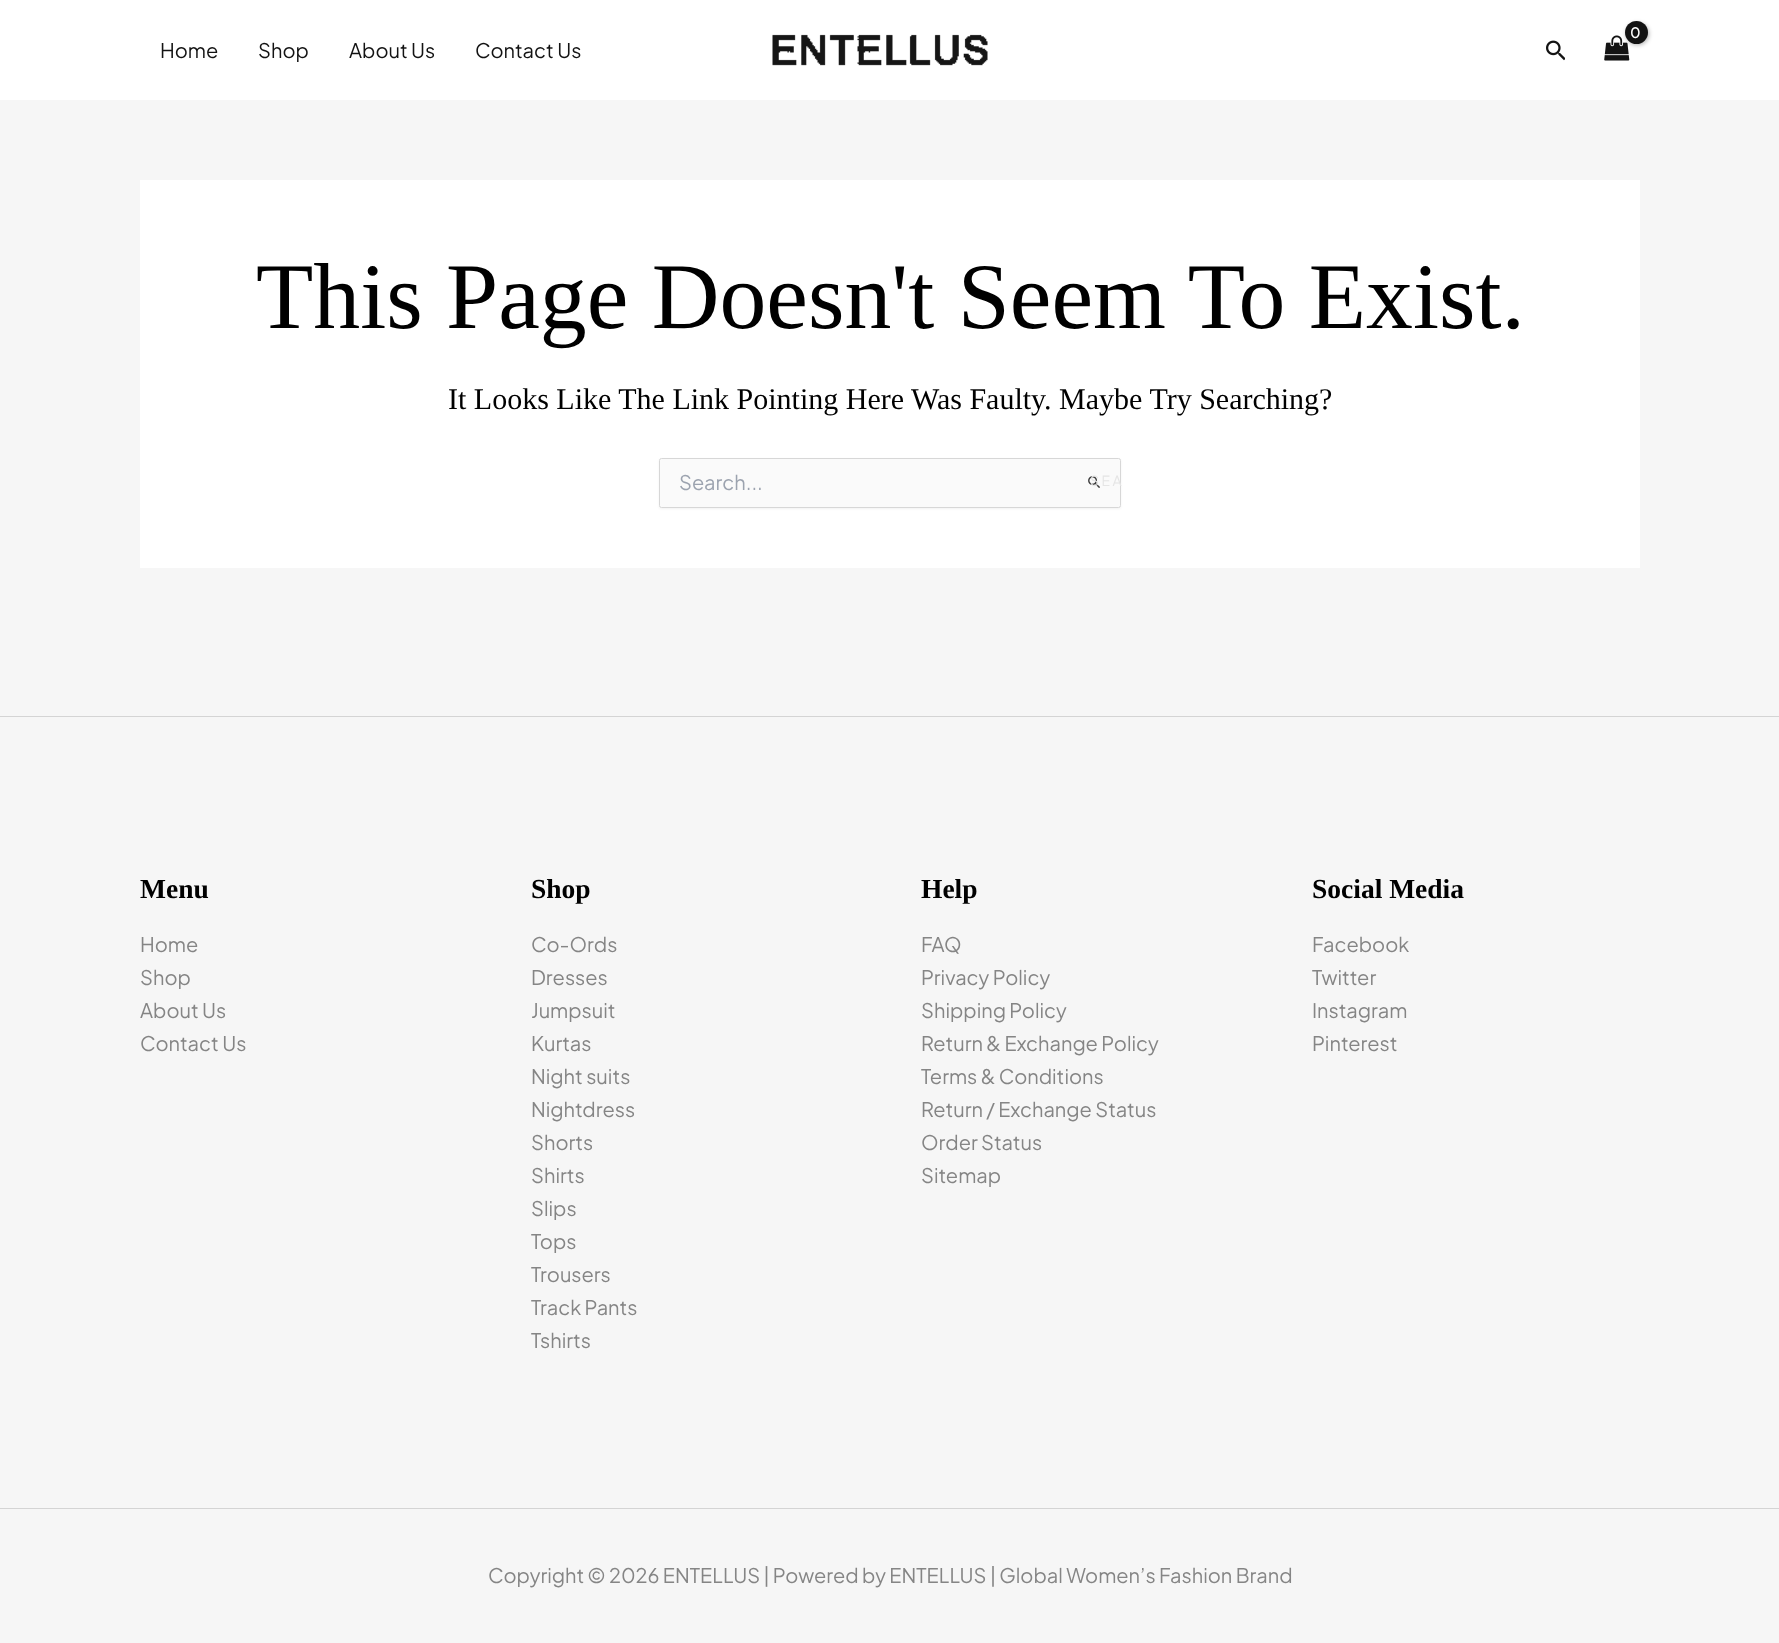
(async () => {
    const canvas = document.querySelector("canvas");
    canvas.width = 1779;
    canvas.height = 1643;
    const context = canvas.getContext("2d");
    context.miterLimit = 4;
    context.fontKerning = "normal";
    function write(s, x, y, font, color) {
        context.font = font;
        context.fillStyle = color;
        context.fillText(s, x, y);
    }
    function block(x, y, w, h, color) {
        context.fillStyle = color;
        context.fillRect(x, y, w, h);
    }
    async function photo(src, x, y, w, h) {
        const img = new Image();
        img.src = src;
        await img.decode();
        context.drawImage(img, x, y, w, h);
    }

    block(0, 0, 1779, 1643, "rgb(246, 246, 246)");
    block(0, 0, 1779, 100, "rgb(255, 255, 255)");
    write("Home", 160, 58, "20px Plus Jakarta Sans", "rgb(19, 19, 19)");
    write("Shop", 258, 58, "20px Plus Jakarta Sans", "rgb(19, 19, 19)");
    write("About Us", 349, 58, "20px Plus Jakarta Sans", "rgb(19, 19, 19)");
    write("Contact Us", 475, 58, "20px Plus Jakarta Sans", "rgb(19, 19, 19)");
    await photo("media/1.png", 772, 34, 216, 32);
    await photo("media/2.png", 1604, 35, 26, 26);
    context.fillStyle = "rgba(0, 0, 0, 0.3)";
    context.filter = "blur(2px)";
    context.beginPath();
    context.roundRect(1626, 23, 23, 22, 11);
    context.fill();
    context.filter = "none";
    context.fillStyle = "rgb(19, 19, 19)";
    context.beginPath();
    context.arc(1636.5, 32.5, 11.5, 0, Math.PI * 2);
    context.fill();
    context.letterSpacing = "-1px";
    write("0", 1630, 38, "bold 14px Plus Jakarta Sans", "rgb(255, 255, 255)");
    await photo("media/3.png", 1546, 40, 19, 21);
    block(140, 180, 1500, 388, "rgb(255, 255, 255)");
    context.letterSpacing = "0px";
    write("This Page Doesn't Seem To Exist.", 256, 328, "93.75px Liberation Serif", "rgb(0, 0, 0)");
    write("It Looks Like The Link Pointing Here Was Faulty. Maybe Try Searching?", 448, 409, "30px Liberation Serif", "rgb(0, 0, 0)");
    context.fillStyle = "rgba(0, 0, 0, 0.05)";
    context.filter = "blur(1px)";
    context.beginPath();
    context.roundRect(659, 459, 462, 50, 2.5);
    context.fill();
    context.filter = "none";
    context.fillStyle = "rgb(250, 250, 250)";
    context.beginPath();
    context.roundRect(659.5, 458.5, 461, 49, 2);
    context.fill();
    context.strokeStyle = "rgb(215, 215, 215)";
    context.stroke();
    write("Search...", 679, 490, "20px Plus Jakarta Sans", "rgb(156, 163, 175)");
    await photo("media/4.png", 1088, 476, 12, 12);
    context.letterSpacing = "2.5px";
    write("SEA", 1090, 486, "14px Plus Jakarta Sans", "rgb(229, 229, 229)");
    block(0, 716, 1779, 1, "rgb(212, 212, 212)");
    context.letterSpacing = "0px";
    write("Menu", 140, 898, "bold 27.5px Liberation Serif", "rgb(0, 0, 0)");
    write("Home", 140, 952, "20px Plus Jakarta Sans", "rgb(133, 133, 133)");
    write("Shop", 140, 985, "20px Plus Jakarta Sans", "rgb(133, 133, 133)");
    write("About Us", 140, 1018, "20px Plus Jakarta Sans", "rgb(133, 133, 133)");
    write("Contact Us", 140, 1051, "20px Plus Jakarta Sans", "rgb(133, 133, 133)");
    write("Shop", 531, 898, "bold 27.5px Liberation Serif", "rgb(0, 0, 0)");
    write("Co-Ords", 531, 952, "20px Plus Jakarta Sans", "rgb(133, 133, 133)");
    write("Dresses", 531, 985, "20px Plus Jakarta Sans", "rgb(133, 133, 133)");
    write("Jumpsuit", 531, 1018, "20px Plus Jakarta Sans", "rgb(133, 133, 133)");
    write("Kurtas", 531, 1051, "20px Plus Jakarta Sans", "rgb(133, 133, 133)");
    write("Night suits", 531, 1084, "20px Plus Jakarta Sans", "rgb(133, 133, 133)");
    write("Nightdress", 531, 1117, "20px Plus Jakarta Sans", "rgb(133, 133, 133)");
    write("Shorts", 531, 1150, "20px Plus Jakarta Sans", "rgb(133, 133, 133)");
    write("Shirts", 531, 1183, "20px Plus Jakarta Sans", "rgb(133, 133, 133)");
    write("Slips", 531, 1216, "20px Plus Jakarta Sans", "rgb(133, 133, 133)");
    write("Tops", 531, 1249, "20px Plus Jakarta Sans", "rgb(133, 133, 133)");
    write("Trousers", 531, 1282, "20px Plus Jakarta Sans", "rgb(133, 133, 133)");
    write("Track Pants", 531, 1315, "20px Plus Jakarta Sans", "rgb(133, 133, 133)");
    write("Tshirts", 531, 1348, "20px Plus Jakarta Sans", "rgb(133, 133, 133)");
    write("Help", 921, 898, "bold 27.5px Liberation Serif", "rgb(0, 0, 0)");
    write("FAQ", 921, 952, "20px Plus Jakarta Sans", "rgb(133, 133, 133)");
    write("Privacy Policy", 921, 985, "20px Plus Jakarta Sans", "rgb(133, 133, 133)");
    write("Shipping Policy", 921, 1018, "20px Plus Jakarta Sans", "rgb(133, 133, 133)");
    write("Return & Exchange Policy", 921, 1051, "20px Plus Jakarta Sans", "rgb(133, 133, 133)");
    write("Terms & Conditions", 921, 1084, "20px Plus Jakarta Sans", "rgb(133, 133, 133)");
    write("Return / Exchange Status", 921, 1117, "20px Plus Jakarta Sans", "rgb(133, 133, 133)");
    write("Order Status", 921, 1150, "20px Plus Jakarta Sans", "rgb(133, 133, 133)");
    write("Sitemap", 921, 1183, "20px Plus Jakarta Sans", "rgb(133, 133, 133)");
    write("Social Media", 1312, 898, "bold 27.5px Liberation Serif", "rgb(0, 0, 0)");
    write("Facebook", 1312, 952, "20px Plus Jakarta Sans", "rgb(133, 133, 133)");
    write("Twitter", 1312, 985, "20px Plus Jakarta Sans", "rgb(133, 133, 133)");
    write("Instagram", 1312, 1018, "20px Plus Jakarta Sans", "rgb(133, 133, 133)");
    write("Pinterest", 1312, 1051, "20px Plus Jakarta Sans", "rgb(133, 133, 133)");
    block(0, 1508, 1779, 1, "rgb(212, 212, 212)");
    write("Copyright © 2026 ENTELLUS | Powered by ENTELLUS | Global Women’s Fashion Brand", 488, 1583, "20px Plus Jakarta Sans", "rgb(133, 133, 133)");
})();
